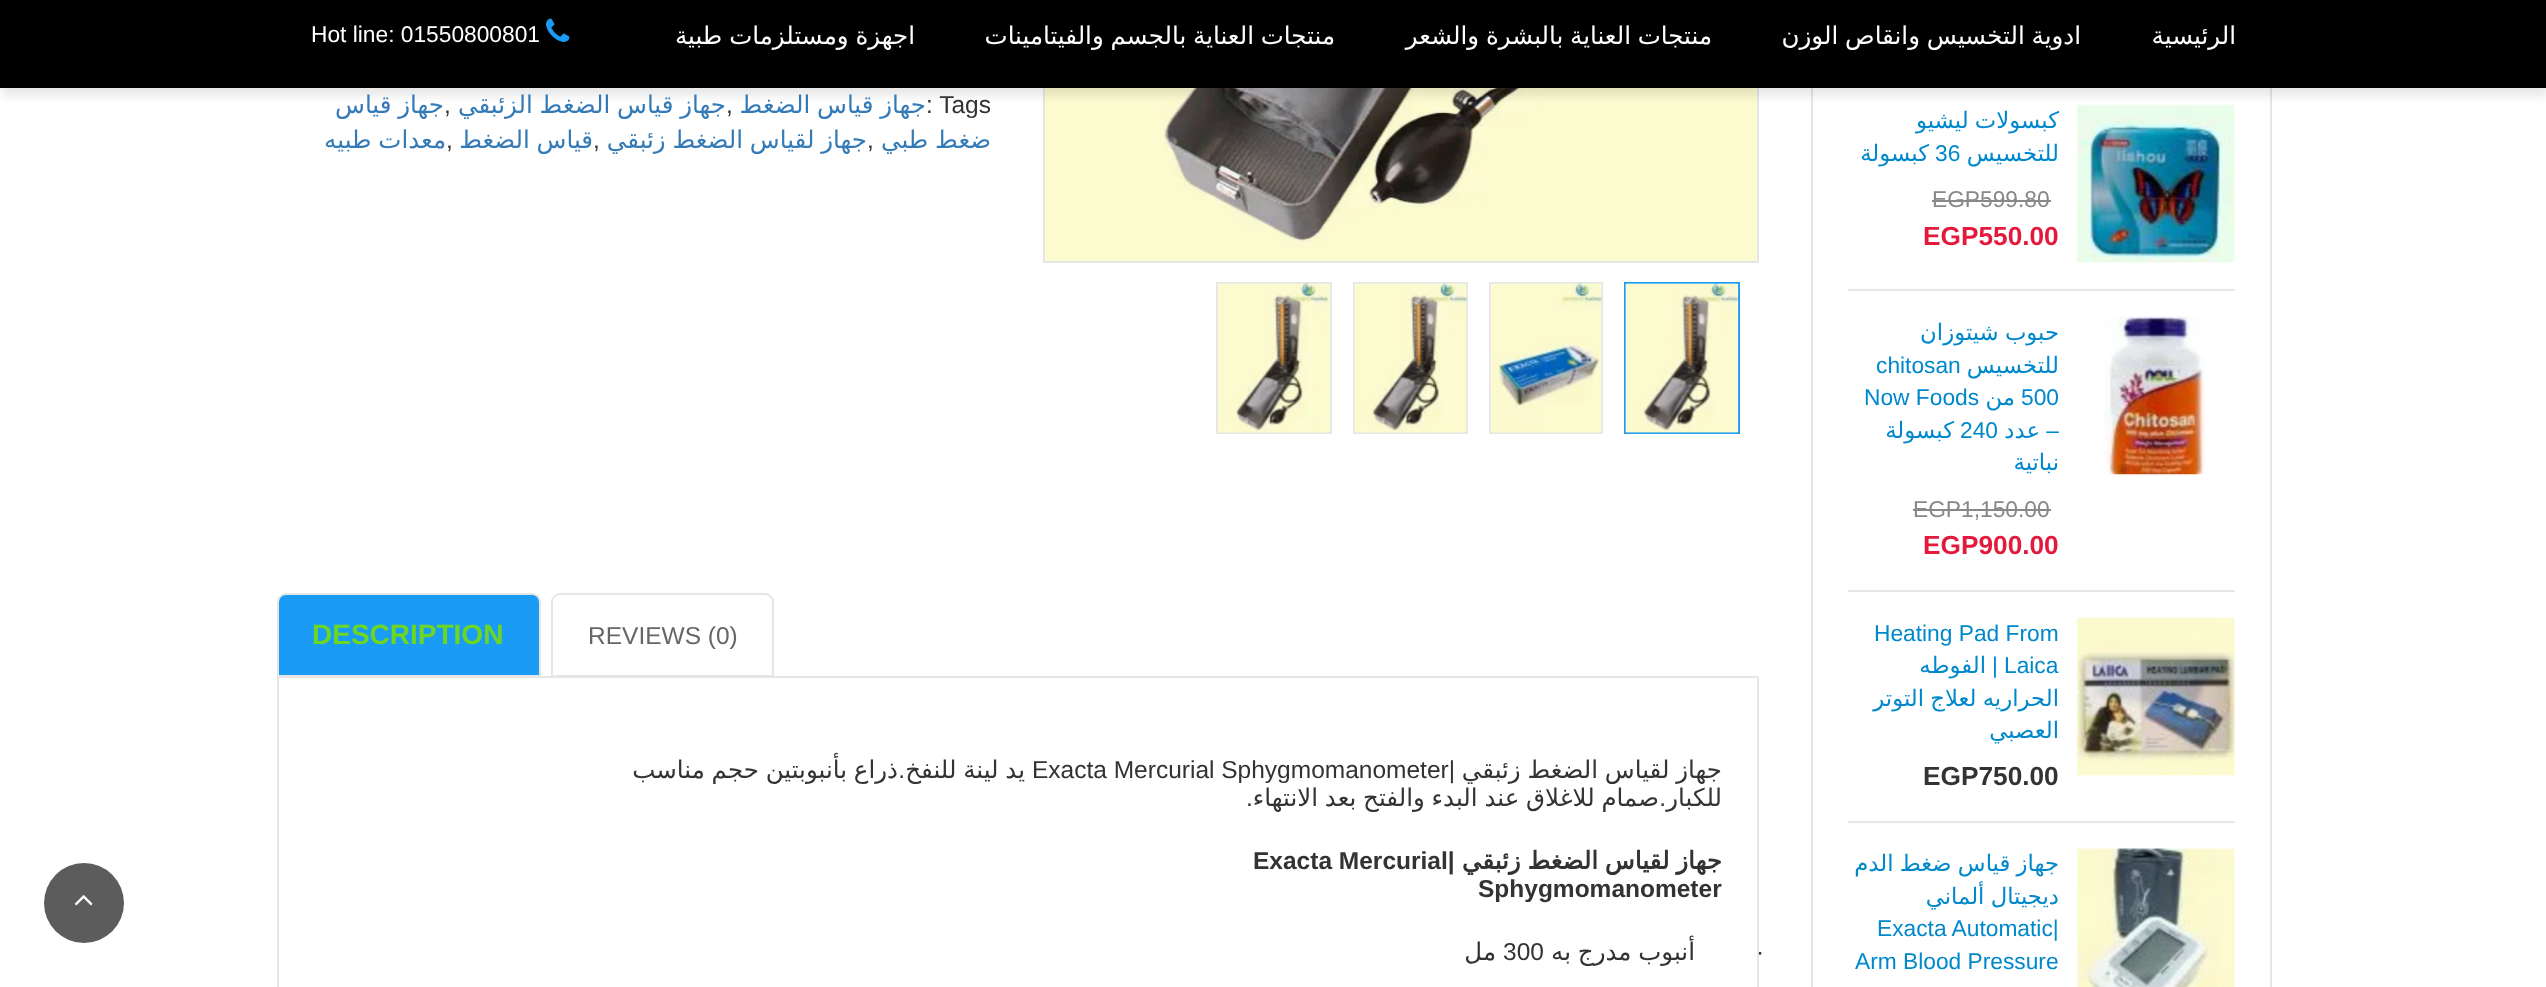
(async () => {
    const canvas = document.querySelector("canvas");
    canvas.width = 2546;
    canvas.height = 987;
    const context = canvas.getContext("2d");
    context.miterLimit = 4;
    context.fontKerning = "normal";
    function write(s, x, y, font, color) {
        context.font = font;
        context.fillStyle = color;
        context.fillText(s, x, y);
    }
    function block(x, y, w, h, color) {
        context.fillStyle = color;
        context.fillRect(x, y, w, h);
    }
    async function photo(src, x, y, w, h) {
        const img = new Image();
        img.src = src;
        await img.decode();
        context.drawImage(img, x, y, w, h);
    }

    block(0, 0, 2546, 987, "rgb(255, 255, 255)");
    context.fillStyle = "rgb(230, 230, 230)";
    context.beginPath();
    context.moveTo(1811, -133);
    context.lineTo(2272, -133);
    context.lineTo(2272, 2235);
    context.bezierCurveTo(2272, 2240, 2268, 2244, 2263, 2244);
    context.lineTo(1820, 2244);
    context.bezierCurveTo(1815, 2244, 1811, 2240, 1811, 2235);
    context.closePath();
    context.moveTo(1813, -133);
    context.lineTo(2270, -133);
    context.lineTo(2270, 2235);
    context.bezierCurveTo(2270, 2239, 2267, 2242, 2263, 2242);
    context.lineTo(1820, 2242);
    context.bezierCurveTo(1816, 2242, 1813, 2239, 1813, 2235);
    context.closePath();
    context.fill("evenodd");
    await photo("media/2.png", 2076, 104, 159, 159);
    context.strokeStyle = "rgb(230, 230, 230)";
    context.lineWidth = 2;
    context.strokeRect(1044, -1, 714, 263);
    await photo("media/6.png", 1045, 88, 712, 173);
    context.fillStyle = "rgba(0, 0, 0, 0.09)";
    context.filter = "blur(4.5px)";
    context.beginPath();
    context.rect(2, 9, 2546, 87);
    context.fill();
    context.filter = "none";
    block(0, 0, 2546, 88, "rgb(0, 0, 0)");
    context.direction = "rtl";
    write("الرئيسية", 2236, 44, "24.5px DejaVu Sans", "rgb(255, 255, 255)");
    context.wordSpacing = "-1px";
    write("ادوية التخسيس وانقاص الوزن", 2081, 44, "24.5px DejaVu Sans", "rgb(255, 255, 255)");
    write("منتجات العناية بالبشرة والشعر", 1712, 44, "24.5px DejaVu Sans", "rgb(255, 255, 255)");
    write("منتجات العناية بالجسم والفيتامينات", 1335, 44, "24.5px DejaVu Sans", "rgb(255, 255, 255)");
    write("اجهزة ومستلزمات طبية", 915, 44, "24.5px DejaVu Sans", "rgb(255, 255, 255)");
    await photo("media/1.png", 546, 18, 24, 24);
    context.wordSpacing = "0px";
    context.direction = "ltr";
    write("Hot line: 01550800801", 311, 42, "22.75px Liberation Sans", "rgb(255, 255, 255)");
    block(1848, 289, 387, 2, "rgb(230, 230, 230)");
    context.wordSpacing = "-1px";
    context.direction = "rtl";
    write("كبسولات ليشيو", 2059, 128, "22.75px DejaVu Sans", "rgb(0, 136, 204)");
    context.wordSpacing = "0px";
    write("للتخسيس", 2059, 161, "22.75px DejaVu Sans", "rgb(0, 136, 204)");
    context.direction = "ltr";
    write("36", 1935, 161, "22.75px Liberation Sans", "rgb(0, 136, 204)");
    context.direction = "rtl";
    write("كبسولة", 1929, 161, "22.75px DejaVu Sans", "rgb(0, 136, 204)");
    context.direction = "ltr";
    write("EGP599.80", 1932, 207, "22.75px Liberation Sans", "rgb(136, 136, 136)");
    block(1932, 200, 119, 2, "rgb(136, 136, 136)");
    write("EGP550.00", 1923, 245, "bold 26.25px Liberation Sans", "rgb(227, 26, 59)");
    block(1848, 590, 387, 2, "rgb(230, 230, 230)");
    await photo("media/3.png", 2104, 316, 102, 159);
    context.wordSpacing = "-1px";
    context.direction = "rtl";
    write("حبوب شيتوزان", 2059, 340, "22.75px DejaVu Sans", "rgb(0, 136, 204)");
    context.wordSpacing = "0px";
    write("للتخسيس", 2059, 373, "22.75px DejaVu Sans", "rgb(0, 136, 204)");
    context.direction = "ltr";
    write("chitosan", 1876, 373, "22.75px Liberation Sans", "rgb(0, 136, 204)");
    write("500", 2021, 405, "22.75px Liberation Sans", "rgb(0, 136, 204)");
    context.direction = "rtl";
    write("من", 2015, 405, "22.75px DejaVu Sans", "rgb(0, 136, 204)");
    context.direction = "ltr";
    write("Now Foods", 1864, 405, "22.75px Liberation Sans", "rgb(0, 136, 204)");
    context.direction = "rtl";
    write("–", 2059, 438, "22.75px Liberation Sans", "rgb(0, 136, 204)");
    write("عدد", 2040, 438, "22.75px DejaVu Sans", "rgb(0, 136, 204)");
    context.direction = "ltr";
    write("240", 1960, 438, "22.75px Liberation Sans", "rgb(0, 136, 204)");
    context.direction = "rtl";
    write("كبسولة", 1954, 438, "22.75px DejaVu Sans", "rgb(0, 136, 204)");
    write("نباتية", 2059, 470, "22.75px DejaVu Sans", "rgb(0, 136, 204)");
    context.direction = "ltr";
    write("EGP1,150.00", 1913, 517, "22.75px Liberation Sans", "rgb(136, 136, 136)");
    block(1913, 509, 138, 2, "rgb(136, 136, 136)");
    write("EGP900.00", 1923, 554, "bold 26.25px Liberation Sans", "rgb(227, 26, 59)");
    block(1848, 821, 387, 2, "rgb(230, 230, 230)");
    await photo("media/4.png", 2076, 617, 159, 159);
    write("Heating Pad From", 1874, 641, "22.75px Liberation Sans", "rgb(0, 136, 204)");
    write("Laica", 2004, 673, "22.75px Liberation Sans", "rgb(0, 136, 204)");
    context.direction = "rtl";
    write("|", 1998, 673, "22.75px Liberation Sans", "rgb(0, 136, 204)");
    write("الفوطه", 1986, 673, "22.75px DejaVu Sans", "rgb(0, 136, 204)");
    context.wordSpacing = "-1px";
    write("الحراريه لعلاج التوتر", 2059, 706, "22.75px DejaVu Sans", "rgb(0, 136, 204)");
    context.wordSpacing = "0px";
    write("العصبي", 2059, 738, "22.75px DejaVu Sans", "rgb(0, 136, 204)");
    context.direction = "ltr";
    write("EGP750.00", 1923, 785, "bold 26.25px Liberation Sans", "rgb(51, 51, 51)");
    await photo("media/5.png", 2076, 848, 159, 139);
    context.wordSpacing = "-1px";
    context.direction = "rtl";
    write("جهاز قياس ضغط الدم", 2059, 871, "22.75px DejaVu Sans", "rgb(0, 136, 204)");
    write("ديجيتال ألماني", 2059, 904, "22.75px DejaVu Sans", "rgb(0, 136, 204)");
    context.wordSpacing = "0px";
    context.direction = "ltr";
    write("Exacta Automatic|", 1877, 936, "22.75px Liberation Sans", "rgb(0, 136, 204)");
    write("Arm Blood Pressure", 1855, 969, "22.75px Liberation Sans", "rgb(0, 136, 204)");
    context.strokeStyle = "rgb(26, 155, 245)";
    context.strokeRect(1625, 283, 114, 150);
    await photo("media/7.png", 1625, 283, 114, 151);
    context.strokeStyle = "rgb(230, 230, 230)";
    context.strokeRect(1490, 283, 112, 150);
    await photo("media/8.png", 1490, 283, 112, 150);
    context.strokeRect(1354, 283, 113, 150);
    await photo("media/9.png", 1354, 283, 114, 150);
    context.strokeRect(1217, 283, 114, 150);
    await photo("media/10.png", 1217, 283, 114, 150);
    write(": Tags", 926, 113, "24.5px Liberation Sans", "rgb(51, 51, 51)");
    context.wordSpacing = "-1px";
    context.direction = "rtl";
    write("جهاز قياس الضغط", 926, 113, "24.5px DejaVu Sans", "rgb(51, 122, 183)");
    context.wordSpacing = "0px";
    context.direction = "ltr";
    write(",", 726, 113, "24.5px Liberation Sans", "rgb(51, 51, 51)");
    context.wordSpacing = "-1px";
    context.direction = "rtl";
    write("جهاز قياس الضغط الزئبقي", 726, 113, "24.5px DejaVu Sans", "rgb(51, 122, 183)");
    context.wordSpacing = "0px";
    context.direction = "ltr";
    write(",", 444, 113, "24.5px Liberation Sans", "rgb(51, 51, 51)");
    context.wordSpacing = "-1px";
    context.direction = "rtl";
    write("جهاز قياس", 444, 113, "24.5px DejaVu Sans", "rgb(51, 122, 183)");
    write("ضغط طبي", 991, 148, "24.5px DejaVu Sans", "rgb(51, 122, 183)");
    context.wordSpacing = "0px";
    context.direction = "ltr";
    write(",", 867, 148, "24.5px Liberation Sans", "rgb(51, 51, 51)");
    context.wordSpacing = "-1px";
    context.direction = "rtl";
    write("جهاز لقياس الضغط زئبقي", 867, 148, "24.5px DejaVu Sans", "rgb(51, 122, 183)");
    context.wordSpacing = "0px";
    context.direction = "ltr";
    write(",", 593, 148, "24.5px Liberation Sans", "rgb(51, 51, 51)");
    context.wordSpacing = "-1px";
    context.direction = "rtl";
    write("قياس الضغط", 593, 148, "24.5px DejaVu Sans", "rgb(51, 122, 183)");
    context.wordSpacing = "0px";
    context.direction = "ltr";
    write(",", 446, 148, "24.5px Liberation Sans", "rgb(51, 51, 51)");
    context.wordSpacing = "-1px";
    context.direction = "rtl";
    write("معدات طبيه", 446, 148, "24.5px DejaVu Sans", "rgb(51, 122, 183)");
    context.strokeRect(278, 677, 1480, 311);
    context.fillStyle = "rgb(255, 255, 255)";
    context.beginPath();
    context.roundRect(552, 594, 221, 82, [8, 8, 0, 0]);
    context.fill();
    context.stroke();
    context.wordSpacing = "0px";
    context.direction = "ltr";
    write("REVIEWS (0)", 588, 644, "24.5px Liberation Sans", "rgb(102, 102, 102)");
    context.fillStyle = "rgb(26, 155, 245)";
    context.beginPath();
    context.roundRect(278, 594, 262, 82, [8, 8, 0, 0]);
    context.fill();
    context.stroke();
    write("DESCRIPTION", 312, 644, "bold 28px Liberation Sans", "rgb(109, 214, 34)");
    context.wordSpacing = "-1px";
    context.direction = "rtl";
    write("جهاز لقياس الضغط زئبقي", 1722, 778, "24.5px DejaVu Sans", "rgb(51, 51, 51)");
    context.wordSpacing = "0px";
    context.direction = "ltr";
    write("Exacta Mercurial Sphygmomanometer|", 1032, 778, "24.5px Liberation Sans", "rgb(51, 51, 51)");
    context.wordSpacing = "-1px";
    context.direction = "rtl";
    write("يد لينة للنفخ", 1025, 778, "24.5px DejaVu Sans", "rgb(51, 51, 51)");
    context.wordSpacing = "0px";
    write(".", 905, 778, "24.5px Liberation Sans", "rgb(51, 51, 51)");
    context.wordSpacing = "-1px";
    write("ذراع بأنبوبتين حجم مناسب", 898, 778, "24.5px DejaVu Sans", "rgb(51, 51, 51)");
    context.wordSpacing = "0px";
    write("للكبار", 1722, 806, "24.5px DejaVu Sans", "rgb(51, 51, 51)");
    context.wordSpacing = "-1px";
    write("صمام للاغلاق عند البدء والفتح بعد الانتهاء", 1659, 806, "24.5px DejaVu Sans", "rgb(51, 51, 51)");
    context.wordSpacing = "0px";
    context.direction = "ltr";
    write(".", 1246, 806, "24.5px Liberation Sans", "rgb(51, 51, 51)");
    context.direction = "rtl";
    write(".", 1666, 806, "24.5px Liberation Sans", "rgb(51, 51, 51)");
    context.wordSpacing = "-1px";
    write("جهاز لقياس الضغط زئبقي", 1722, 869, "bold 24.5px DejaVu Sans", "rgb(51, 51, 51)");
    context.wordSpacing = "0px";
    context.direction = "ltr";
    write("Exacta Mercurial|", 1253, 869, "bold 24.5px Liberation Sans", "rgb(51, 51, 51)");
    write("Sphygmomanometer", 1478, 897, "bold 24.5px Liberation Sans", "rgb(51, 51, 51)");
    write("·", 1756, 960, "24.5px Liberation Sans", "rgb(51, 51, 51)");
    context.wordSpacing = "-1px";
    context.direction = "rtl";
    write("أنبوب مدرج به", 1695, 960, "24.5px DejaVu Sans", "rgb(51, 51, 51)");
    context.wordSpacing = "0px";
    context.direction = "ltr";
    write("300", 1503, 960, "24.5px Liberation Sans", "rgb(51, 51, 51)");
    context.direction = "rtl";
    write("مل", 1496, 960, "24.5px DejaVu Sans", "rgb(51, 51, 51)");
    context.fillStyle = "rgb(92, 92, 92)";
    context.beginPath();
    context.arc(84, 903, 40, 0, Math.PI * 2);
    context.fill();
    await photo("media/11.png", 74, 895, 19, 11);
})();
